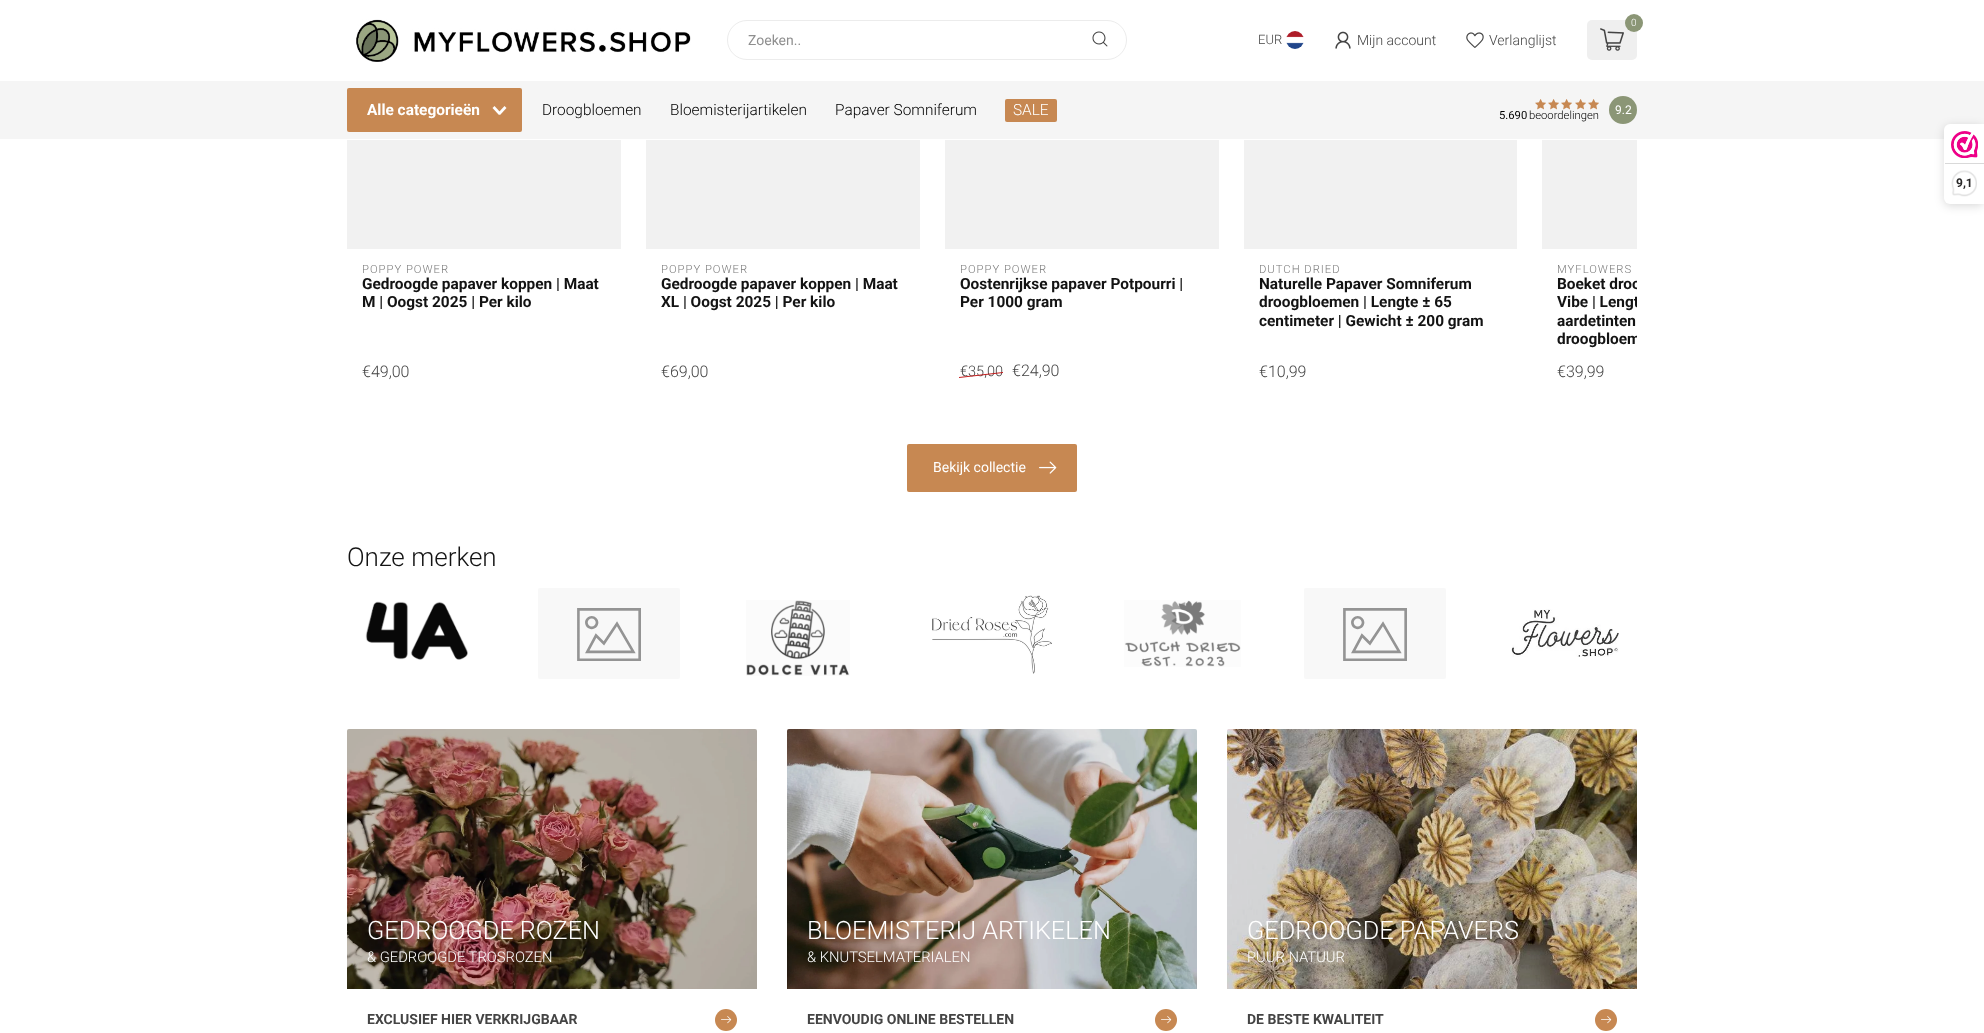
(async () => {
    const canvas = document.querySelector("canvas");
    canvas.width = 1984;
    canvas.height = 1033;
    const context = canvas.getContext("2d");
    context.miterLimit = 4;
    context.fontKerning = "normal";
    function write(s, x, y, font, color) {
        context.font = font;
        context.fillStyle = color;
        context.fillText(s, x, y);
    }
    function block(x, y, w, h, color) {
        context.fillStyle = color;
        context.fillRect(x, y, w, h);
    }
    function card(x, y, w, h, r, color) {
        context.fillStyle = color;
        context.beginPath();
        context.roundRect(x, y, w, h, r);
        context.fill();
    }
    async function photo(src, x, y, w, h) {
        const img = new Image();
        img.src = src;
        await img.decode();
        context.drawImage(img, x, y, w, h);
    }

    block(0, 0, 1984, 1033, "rgb(255, 255, 255)");
    await photo("media/1.png", 356, 19, 335, 43);
    context.beginPath();
    context.roundRect(727.5, 20.5, 399, 39, 19.5);
    context.strokeStyle = "rgb(236, 236, 236)";
    context.stroke();
    write("Zoeken..", 748, 45, "14px Roboto", "rgb(143, 143, 143)");
    await photo("media/2.png", 1092, 31, 16, 16);
    card(1587, 20, 50, 40, 5, "rgb(239, 239, 239)");
    context.fillStyle = "rgb(139, 150, 118)";
    context.beginPath();
    context.arc(1634, 23, 9, 0, Math.PI * 2);
    context.fill();
    write("0", 1631, 26, "300 10px Roboto", "rgb(255, 255, 255)");
    await photo("media/3.png", 1600, 28, 24, 23);
    write("EUR", 1258, 44, "300 13px Roboto", "rgb(68, 68, 68)");
    await photo("media/4.png", 1286, 31, 18, 18);
    await photo("media/5.png", 1335, 31, 16, 18);
    write("Mijn account", 1357, 45, "300 14px Roboto", "rgb(68, 68, 68)");
    await photo("media/6.png", 1466, 32, 18, 16);
    write("Verlanglijst", 1489, 45, "300 14px Roboto", "rgb(68, 68, 68)");
    block(0, 81, 1984, 58, "rgb(245, 245, 245)");
    card(347, 88, 175, 44, 2, "rgb(199, 136, 82)");
    write("Alle categorieën", 367, 115, "bold 15.4px Roboto", "rgb(255, 255, 255)");
    context.beginPath();
    context.moveTo(494.5, 106);
    context.lineTo(501, 113);
    context.lineTo(499, 115);
    context.lineTo(492.5, 108);
    context.closePath();
    context.fill();
    context.beginPath();
    context.moveTo(498, 113);
    context.lineTo(504.5, 106);
    context.lineTo(506.5, 108);
    context.lineTo(500, 115);
    context.closePath();
    context.fill();
    write("Droogbloemen", 542, 115, "300 15.4px Roboto", "rgb(0, 0, 0)");
    write("Bloemisterijartikelen", 670, 115, "300 15.4px Roboto", "rgb(0, 0, 0)");
    write("Papaver Somniferum", 835, 115, "300 15.4px Roboto", "rgb(0, 0, 0)");
    card(1005, 99, 52, 23, 2, "rgb(199, 136, 82)");
    write("SALE", 1013, 115, "300 15.4px Roboto", "rgb(255, 255, 255)");
    await photo("media/7.png", 1535, 99, 11, 11);
    await photo("media/7.png", 1548, 99, 11, 11);
    await photo("media/7.png", 1561, 99, 11, 11);
    await photo("media/7.png", 1575, 99, 11, 11);
    await photo("media/7.png", 1588, 99, 11, 11);
    write("5.690", 1499, 119, "11.25px Roboto", "rgb(0, 0, 0)");
    write("beoordelingen", 1529, 119, "300 11.25px Roboto", "rgb(0, 0, 0)");
    context.fillStyle = "rgb(139, 150, 118)";
    context.beginPath();
    context.arc(1623, 110, 14, 0, Math.PI * 2);
    context.fill();
    write("9.2", 1615, 114, "12px Roboto", "rgb(255, 255, 255)");
    context.fillStyle = "rgba(0, 0, 0, 0.15)";
    context.filter = "blur(5px)";
    context.beginPath();
    context.roundRect(1944, 126, 40, 80, 6);
    context.fill();
    context.filter = "none";
    context.fillStyle = "rgb(255, 255, 255)";
    context.beginPath();
    context.roundRect(1944, 124, 40, 80, [6, 0, 0, 6]);
    context.fill();
    await photo("media/8.png", 1951, 131, 27, 27);
    block(1945, 163, 39, 1, "rgb(217, 217, 217)");
    await photo("media/9.png", 1951, 170, 26, 27);
    write("9,1", 1956, 187, "bold 12px Roboto", "rgb(39, 38, 38)");
    block(347, 140, 274, 109, "rgb(241, 241, 241)");
    context.letterSpacing = "1px";
    write("POPPY POWER", 362, 273, "300 11.25px Roboto", "rgb(124, 124, 124)");
    context.letterSpacing = "0px";
    write("Gedroogde papaver koppen | Maat", 362, 289, "bold 15.4px Roboto", "rgb(19, 19, 19)");
    write("M | Oogst 2025 | Per kilo", 362, 307, "bold 15.4px Roboto", "rgb(19, 19, 19)");
    write("€49,00", 362, 377, "300 16px Roboto", "rgb(68, 68, 68)");
    block(646, 140, 274, 109, "rgb(241, 241, 241)");
    context.letterSpacing = "1px";
    write("POPPY POWER", 661, 273, "300 11.25px Roboto", "rgb(124, 124, 124)");
    context.letterSpacing = "0px";
    write("Gedroogde papaver koppen | Maat", 661, 289, "bold 15.4px Roboto", "rgb(19, 19, 19)");
    write("XL | Oogst 2025 | Per kilo", 661, 307, "bold 15.4px Roboto", "rgb(19, 19, 19)");
    write("€69,00", 661, 377, "300 16px Roboto", "rgb(68, 68, 68)");
    block(945, 140, 274, 109, "rgb(241, 241, 241)");
    context.letterSpacing = "1px";
    write("POPPY POWER", 960, 273, "300 11.25px Roboto", "rgb(124, 124, 124)");
    context.letterSpacing = "0px";
    write("Oostenrijkse papaver Potpourri |", 960, 289, "bold 15.4px Roboto", "rgb(19, 19, 19)");
    write("Per 1000 gram", 960, 307, "bold 15.4px Roboto", "rgb(19, 19, 19)");
    write("€35,00", 960, 376, "300 14.5px Roboto", "rgb(68, 68, 68)");
    context.fillStyle = "rgb(195, 30, 30)";
    context.beginPath();
    context.moveTo(959, 377);
    context.lineTo(1003, 372);
    context.lineTo(1003, 373);
    context.lineTo(959, 378);
    context.closePath();
    context.fill();
    write("€24,90", 1012, 376, "300 16px Roboto", "rgb(68, 68, 68)");
    block(1244, 140, 273, 109, "rgb(241, 241, 241)");
    context.letterSpacing = "1px";
    write("DUTCH DRIED", 1259, 273, "300 11.25px Roboto", "rgb(124, 124, 124)");
    context.letterSpacing = "0px";
    write("Naturelle Papaver Somniferum", 1259, 289, "bold 15.4px Roboto", "rgb(19, 19, 19)");
    write("droogbloemen | Lengte ± 65", 1259, 307, "bold 15.4px Roboto", "rgb(19, 19, 19)");
    write("centimeter | Gewicht ± 200 gram", 1259, 326, "bold 15.4px Roboto", "rgb(19, 19, 19)");
    write("€10,99", 1259, 377, "300 16px Roboto", "rgb(68, 68, 68)");
    block(1542, 140, 95, 109, "rgb(241, 241, 241)");
    context.letterSpacing = "1px";
    write("MYFLOWERS", 1557, 273, "300 11.25px Roboto", "rgb(124, 124, 124)");
    context.save();
    context.beginPath();
    context.rect(347, 0, 1290, 429);
    context.clip();
    context.letterSpacing = "0px";
    write("Boeket droo", 1557, 289, "bold 15.4px Roboto", "rgb(19, 19, 19)");
    write("Vibe | Lengt", 1557, 307, "bold 15.4px Roboto", "rgb(19, 19, 19)");
    context.restore();
    context.letterSpacing = "0px";
    write("aardetinten", 1557, 326, "bold 15.4px Roboto", "rgb(19, 19, 19)");
    context.save();
    context.beginPath();
    context.rect(347, 0, 1290, 429);
    context.clip();
    write("droogbloem", 1557, 344, "bold 15.4px Roboto", "rgb(19, 19, 19)");
    context.restore();
    write("€39,99", 1557, 377, "300 16px Roboto", "rgb(68, 68, 68)");
    card(907, 444, 170, 48, 2, "rgb(199, 136, 82)");
    write("Bekijk collectie", 933, 472, "14px Roboto", "rgb(255, 255, 255)");
    await photo("media/10.png", 1039, 461, 18, 13);
    write("Onze merken", 347, 566, "300 26px Roboto", "rgb(19, 19, 19)");
    await photo("media/11.png", 365, 601, 103, 59);
    await photo("media/12.png", 538, 588, 142, 91);
    await photo("media/13.png", 746, 600, 104, 76);
    await photo("media/14.png", 932, 595, 120, 79);
    await photo("media/15.png", 1124, 600, 117, 67);
    await photo("media/16.png", 1304, 588, 142, 91);
    await photo("media/17.png", 1511, 609, 108, 48);
    await photo("media/18.png", 347, 729, 410, 260);
    context.fillStyle = "rgba(0, 0, 0, 0.1)";
    context.beginPath();
    context.roundRect(347, 729, 410, 260, [2, 2, 0, 0]);
    context.fill();
    write("GEDROOGDE ROZEN", 367, 939, "300 25.25px Roboto", "rgb(255, 255, 255)");
    write("& GEDROOGDE TROSROZEN", 367, 962, "300 14.75px Roboto", "rgb(255, 255, 255)");
    write("EXCLUSIEF HIER VERKRIJGBAAR", 367, 1024, "bold 14px Roboto", "rgb(68, 68, 68)");
    context.fillStyle = "rgb(199, 136, 82)";
    context.beginPath();
    context.arc(726, 1020, 11, 0, Math.PI * 2);
    context.fill();
    await photo("media/19.png", 721, 1016, 11, 8);
    await photo("media/20.png", 787, 729, 410, 260);
    context.fillStyle = "rgba(0, 0, 0, 0.1)";
    context.beginPath();
    context.roundRect(787, 729, 410, 260, [2, 2, 0, 0]);
    context.fill();
    write("BLOEMISTERIJ ARTIKELEN", 807, 939, "300 25.25px Roboto", "rgb(255, 255, 255)");
    write("& KNUTSELMATERIALEN", 807, 962, "300 14.75px Roboto", "rgb(255, 255, 255)");
    write("EENVOUDIG ONLINE BESTELLEN", 807, 1024, "bold 14px Roboto", "rgb(68, 68, 68)");
    context.fillStyle = "rgb(199, 136, 82)";
    context.beginPath();
    context.arc(1166, 1020, 11, 0, Math.PI * 2);
    context.fill();
    await photo("media/19.png", 1161, 1016, 11, 8);
    await photo("media/21.png", 1227, 729, 410, 260);
    context.fillStyle = "rgba(0, 0, 0, 0.1)";
    context.beginPath();
    context.roundRect(1227, 729, 410, 260, [2, 2, 0, 0]);
    context.fill();
    write("GEDROOGDE PAPAVERS", 1247, 939, "300 25.25px Roboto", "rgb(255, 255, 255)");
    write("PUUR NATUUR", 1247, 962, "300 14.75px Roboto", "rgb(255, 255, 255)");
    write("DE BESTE KWALITEIT", 1247, 1024, "bold 14px Roboto", "rgb(68, 68, 68)");
    context.fillStyle = "rgb(199, 136, 82)";
    context.beginPath();
    context.arc(1606, 1020, 11, 0, Math.PI * 2);
    context.fill();
    await photo("media/19.png", 1601, 1016, 11, 8);
})();
